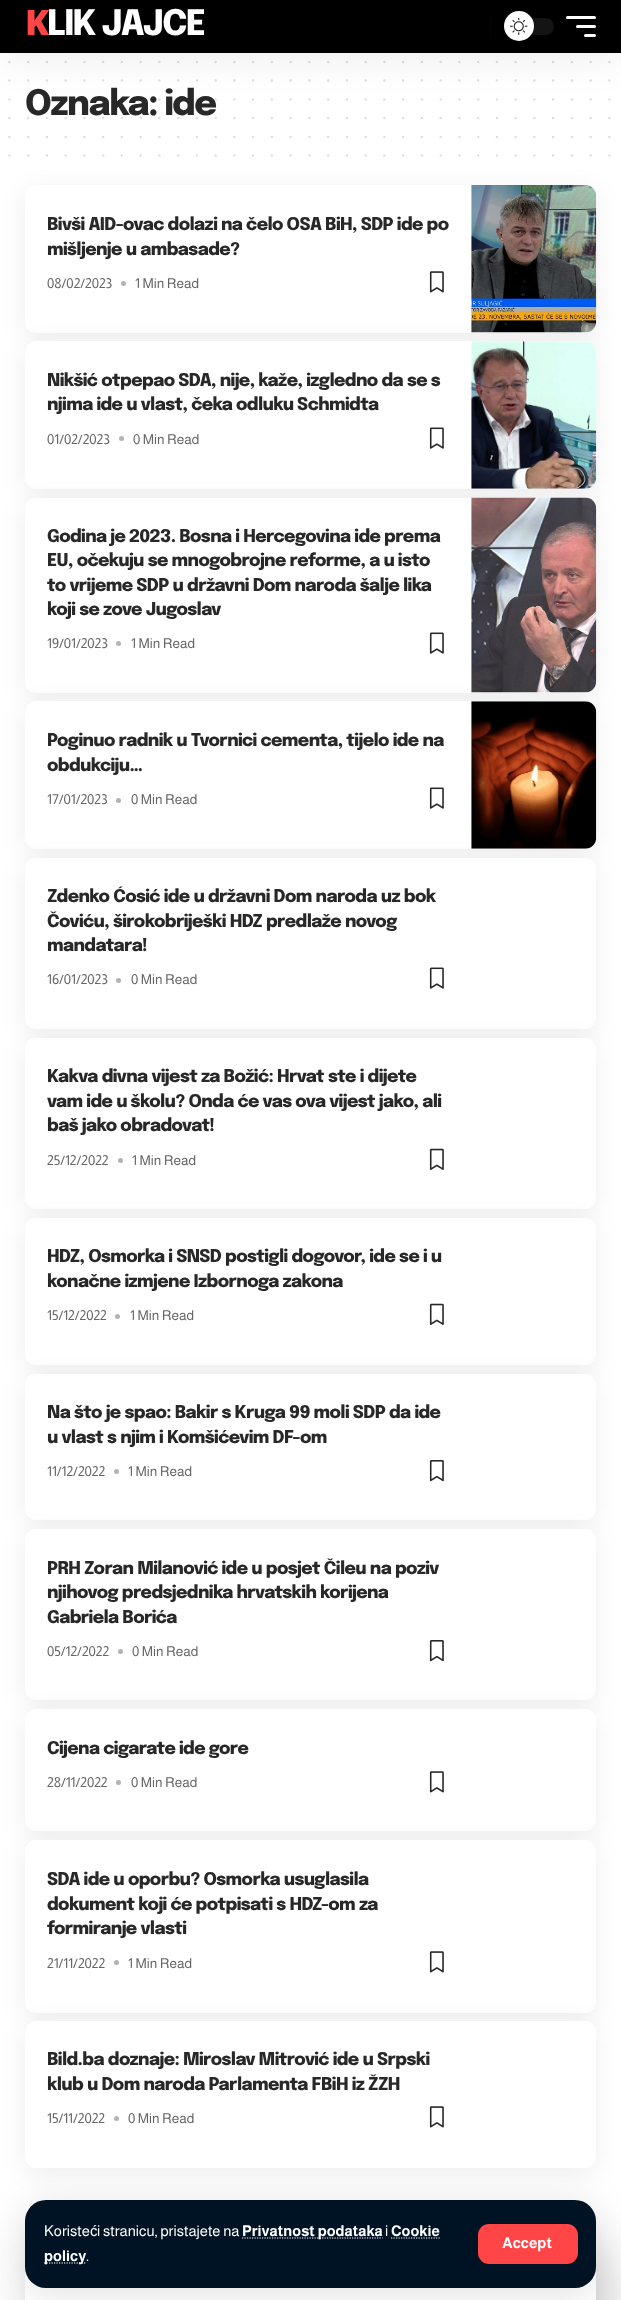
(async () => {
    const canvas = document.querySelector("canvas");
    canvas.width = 621;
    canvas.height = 2300;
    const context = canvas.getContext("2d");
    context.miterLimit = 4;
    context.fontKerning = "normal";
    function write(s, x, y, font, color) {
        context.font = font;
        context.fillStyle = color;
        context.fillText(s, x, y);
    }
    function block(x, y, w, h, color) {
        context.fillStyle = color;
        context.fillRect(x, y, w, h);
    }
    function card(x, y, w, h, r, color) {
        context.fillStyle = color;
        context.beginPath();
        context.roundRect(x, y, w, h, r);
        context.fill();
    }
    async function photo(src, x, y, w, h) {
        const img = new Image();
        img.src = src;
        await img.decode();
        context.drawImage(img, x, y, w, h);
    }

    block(0, 0, 621, 2300, "rgb(255, 255, 255)");
    context.beginPath();
    context.moveTo(9.4, 61.9);
    context.lineTo(609.6, 61.9);
    context.strokeStyle = "rgb(223, 223, 223)";
    context.lineWidth = 2.5;
    context.lineCap = "round";
    context.setLineDash([0, 18.75]);
    context.stroke();
    context.beginPath();
    context.moveTo(9.4, 80.6);
    context.lineTo(609.6, 80.6);
    context.stroke();
    context.letterSpacing = "-1.5px";
    write("Oznaka: ide", 25, 115, "800 35px Epilogue", "rgb(40, 40, 40)");
    context.beginPath();
    context.moveTo(9.4, 99.4);
    context.lineTo(609.6, 99.4);
    context.strokeStyle = "rgba(40, 40, 40, 0.15)";
    context.stroke();
    context.fillStyle = "rgba(0, 0, 0, 0.07)";
    context.filter = "blur(19px)";
    context.beginPath();
    context.rect(0, 5, 621, 53);
    context.fill();
    context.filter = "none";
    block(0, 0, 621, 53, "rgb(0, 0, 0)");
    context.letterSpacing = "-1.75px";
    write("K", 25, 35, "900 35px Noto Sans", "rgb(255, 69, 69)");
    write("LIK JAJCE", 47, 35, "800 35px Epilogue", "rgb(255, 255, 255)");
    block(490, 18, 1, 17, "rgb(5, 5, 5)");
    card(504, 18, 50, 17, 8.5, "rgb(20, 20, 20)");
    context.fillStyle = "rgb(255, 255, 255)";
    context.beginPath();
    context.arc(519, 26, 15, 0, Math.PI * 2);
    context.fill();
    await photo("media/1.png", 510, 18, 18, 17);
    card(566, 16, 30, 3, 1.5, "rgb(255, 255, 255)");
    card(576, 25, 20, 3, 1.5, "rgb(255, 255, 255)");
    card(584, 34, 12, 3, 1.5, "rgb(255, 255, 255)");
    context.fillStyle = "rgba(0, 0, 0, 0.07)";
    context.filter = "blur(12.5px)";
    context.beginPath();
    context.roundRect(25, 190, 571, 148, 11);
    context.fill();
    context.filter = "none";
    card(25, 185, 571, 148, 11, "rgb(255, 255, 255)");
    context.fillStyle = "rgba(0, 0, 0, 0.07)";
    context.filter = "blur(12.5px)";
    context.beginPath();
    context.roundRect(25, 346, 571, 148, 11);
    context.fill();
    context.filter = "none";
    card(25, 341, 571, 148, 11, "rgb(255, 255, 255)");
    context.fillStyle = "rgba(0, 0, 0, 0.07)";
    context.filter = "blur(12.5px)";
    context.beginPath();
    context.roundRect(25, 503, 571, 195, 11);
    context.fill();
    context.filter = "none";
    card(25, 498, 571, 195, 11, "rgb(255, 255, 255)");
    context.fillStyle = "rgba(0, 0, 0, 0.07)";
    context.filter = "blur(12.5px)";
    context.beginPath();
    context.roundRect(25, 706, 571, 148, 11);
    context.fill();
    context.filter = "none";
    card(25, 701, 571, 148, 11, "rgb(255, 255, 255)");
    context.fillStyle = "rgba(0, 0, 0, 0.07)";
    context.filter = "blur(12.5px)";
    context.beginPath();
    context.roundRect(25, 863, 571, 171, 11);
    context.fill();
    context.filter = "none";
    card(25, 858, 571, 171, 11, "rgb(255, 255, 255)");
    context.fillStyle = "rgba(0, 0, 0, 0.07)";
    context.filter = "blur(12.5px)";
    context.beginPath();
    context.roundRect(25, 1043, 571, 171, 11);
    context.fill();
    context.filter = "none";
    card(25, 1038, 571, 171, 11, "rgb(255, 255, 255)");
    context.fillStyle = "rgba(0, 0, 0, 0.07)";
    context.filter = "blur(12.5px)";
    context.beginPath();
    context.roundRect(25, 1223, 571, 147, 11);
    context.fill();
    context.filter = "none";
    card(25, 1218, 571, 147, 11, "rgb(255, 255, 255)");
    context.fillStyle = "rgba(0, 0, 0, 0.07)";
    context.filter = "blur(12.5px)";
    context.beginPath();
    context.roundRect(25, 1379, 571, 146, 11);
    context.fill();
    context.filter = "none";
    card(25, 1374, 571, 146, 11, "rgb(255, 255, 255)");
    context.fillStyle = "rgba(0, 0, 0, 0.07)";
    context.filter = "blur(12.5px)";
    context.beginPath();
    context.roundRect(25, 1534, 571, 171, 11);
    context.fill();
    context.filter = "none";
    card(25, 1529, 571, 171, 11, "rgb(255, 255, 255)");
    context.fillStyle = "rgba(0, 0, 0, 0.07)";
    context.filter = "blur(12.5px)";
    context.beginPath();
    context.roundRect(25, 1714, 571, 122, 11);
    context.fill();
    context.filter = "none";
    card(25, 1709, 571, 122, 11, "rgb(255, 255, 255)");
    context.fillStyle = "rgba(0, 0, 0, 0.07)";
    context.filter = "blur(12.5px)";
    context.beginPath();
    context.roundRect(25, 1845, 571, 173, 11);
    context.fill();
    context.filter = "none";
    card(25, 1840, 571, 173, 11, "rgb(255, 255, 255)");
    context.fillStyle = "rgba(0, 0, 0, 0.07)";
    context.filter = "blur(12.5px)";
    context.beginPath();
    context.roundRect(25, 2026, 571, 147, 11);
    context.fill();
    context.filter = "none";
    card(25, 2021, 571, 147, 11, "rgb(255, 255, 255)");
    context.fillStyle = "rgba(0, 0, 0, 0.12)";
    context.filter = "blur(19px)";
    context.beginPath();
    context.roundRect(25, 2205, 571, 88, 21);
    context.fill();
    context.filter = "none";
    context.save();
    context.beginPath();
    context.moveTo(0, 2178);
    context.lineTo(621, 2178);
    context.lineTo(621, 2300);
    context.lineTo(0, 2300);
    context.closePath();
    context.moveTo(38, 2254);
    context.lineTo(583, 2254);
    context.bezierCurveTo(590, 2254, 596, 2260, 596, 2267);
    context.lineTo(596, 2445);
    context.bezierCurveTo(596, 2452, 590, 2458, 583, 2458);
    context.lineTo(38, 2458);
    context.bezierCurveTo(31, 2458, 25, 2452, 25, 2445);
    context.lineTo(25, 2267);
    context.bezierCurveTo(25, 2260, 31, 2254, 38, 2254);
    context.closePath();
    context.clip("evenodd");
    context.fillStyle = "rgba(0, 0, 0, 0.2)";
    context.filter = "blur(25px)";
    context.beginPath();
    context.roundRect(38, 2254, 571, 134, 13);
    context.fill();
    context.filter = "none";
    context.restore();
    card(25, 2200, 571, 88, 21, "rgb(0, 19, 37)");
    context.letterSpacing = "0px";
    write("Koriste", 44, 2236, "14.9px Almarai", "rgb(255, 255, 255)");
    write("ć", 90, 2236, "14.9px Liberation Sans", "rgb(255, 255, 255)");
    write("i stranicu, pristajete na", 97, 2236, "14.9px Almarai", "rgb(255, 255, 255)");
    context.beginPath();
    context.moveTo(242, 2238);
    context.lineTo(382.5, 2238);
    context.strokeStyle = "rgb(255, 255, 255)";
    context.lineWidth = 1.2;
    context.lineCap = "butt";
    context.setLineDash([1.25, 1.25]);
    context.stroke();
    write("Privatnost podataka", 242, 2236, "bold 14.9px Almarai", "rgb(255, 255, 255)");
    write("i", 385, 2236, "14.9px Almarai", "rgb(255, 255, 255)");
    write("Cookie", 391, 2236, "bold 14.9px Almarai", "rgb(255, 255, 255)");
    context.beginPath();
    context.moveTo(391, 2238);
    context.lineTo(440, 2238);
    context.stroke();
    context.beginPath();
    context.moveTo(44, 2263);
    context.lineTo(86, 2263);
    context.stroke();
    write("policy", 44, 2261, "bold 14.9px Almarai", "rgb(255, 255, 255)");
    write(".", 86, 2261, "14.9px Almarai", "rgb(255, 255, 255)");
    card(478, 2224, 100, 40, 11, "rgb(255, 69, 69)");
    write("Accept", 502, 2248, "bold 15px Almarai", "rgb(255, 255, 255)");
    context.beginPath();
    context.moveTo(9.4, 118.1);
    context.lineTo(609.6, 118.1);
    context.strokeStyle = "rgb(223, 223, 223)";
    context.lineWidth = 2.5;
    context.lineCap = "round";
    context.setLineDash([0, 18.75]);
    context.stroke();
    context.beginPath();
    context.moveTo(9.4, 136.9);
    context.lineTo(609.6, 136.9);
    context.stroke();
    context.beginPath();
    context.moveTo(9.4, 155.6);
    context.lineTo(609.6, 155.6);
    context.stroke();
    context.letterSpacing = "-0.6px";
    write("Bivši AID-ovac dolazi na čelo OSA BiH, SDP ide po", 47, 230, "800 17.5px Epilogue", "rgb(40, 40, 40)");
    write("mišljenje u ambasade?", 47, 255, "800 17.5px Epilogue", "rgb(40, 40, 40)");
    await photo("media/2.png", 471, 185, 126, 148);
    context.letterSpacing = "0px";
    write("08/02/2023", 47, 288, "13.75px Almarai", "rgb(102, 102, 102)");
    context.fillStyle = "rgb(179, 179, 179)";
    context.beginPath();
    context.arc(123.5, 283.5, 2.5, 0, Math.PI * 2);
    context.fill();
    write("1 Min Read", 135, 288, "13.75px Almarai", "rgb(102, 102, 102)");
    await photo("media/3.png", 429, 271, 15, 22);
    context.letterSpacing = "-0.6px";
    write("Nikšić otpepao SDA, nije, kaže, izgledno da se s", 47, 386, "800 17.5px Epilogue", "rgb(40, 40, 40)");
    write("njima ide u vlast, čeka odluku Schmidta", 47, 410, "800 17.5px Epilogue", "rgb(40, 40, 40)");
    await photo("media/4.png", 471, 341, 126, 148);
    context.letterSpacing = "0px";
    write("01/02/2023", 47, 444, "13.75px Almarai", "rgb(102, 102, 102)");
    context.fillStyle = "rgb(179, 179, 179)";
    context.beginPath();
    context.arc(121.5, 438.5, 2.5, 0, Math.PI * 2);
    context.fill();
    write("0 Min Read", 133, 444, "13.75px Almarai", "rgb(102, 102, 102)");
    await photo("media/5.png", 429, 427, 15, 22);
    context.letterSpacing = "-0.6px";
    write("Godina je 2023. Bosna i Hercegovina ide prema", 47, 542, "800 17.5px Epilogue", "rgb(40, 40, 40)");
    write("EU, očekuju se mnogobrojne reforme, a u isto", 47, 566, "800 17.5px Epilogue", "rgb(40, 40, 40)");
    write("to vrijeme SDP u državni Dom naroda šalje lika", 47, 591, "800 17.5px Epilogue", "rgb(40, 40, 40)");
    write("koji se zove Jugoslav", 47, 615, "800 17.5px Epilogue", "rgb(40, 40, 40)");
    await photo("media/6.png", 471, 497, 126, 196);
    context.letterSpacing = "0px";
    write("19/01/2023", 47, 648, "13.75px Almarai", "rgb(102, 102, 102)");
    context.fillStyle = "rgb(179, 179, 179)";
    context.beginPath();
    context.arc(118.5, 643.5, 2.5, 0, Math.PI * 2);
    context.fill();
    write("1 Min Read", 131, 648, "13.75px Almarai", "rgb(102, 102, 102)");
    await photo("media/5.png", 429, 632, 15, 22);
    context.letterSpacing = "-0.6px";
    write("Poginuo radnik u Tvornici cementa, tijelo ide na", 47, 746, "800 17.5px Epilogue", "rgb(40, 40, 40)");
    write("obdukciju…", 47, 771, "800 17.5px Epilogue", "rgb(40, 40, 40)");
    await photo("media/7.png", 471, 701, 126, 148);
    context.letterSpacing = "0px";
    write("17/01/2023", 47, 804, "13.75px Almarai", "rgb(102, 102, 102)");
    context.fillStyle = "rgb(179, 179, 179)";
    context.beginPath();
    context.arc(118.5, 800.5, 2.5, 0, Math.PI * 2);
    context.fill();
    write("0 Min Read", 131, 804, "13.75px Almarai", "rgb(102, 102, 102)");
    await photo("media/5.png", 429, 787, 15, 22);
    context.letterSpacing = "-0.6px";
    write("Zdenko Ćosić ide u državni Dom naroda uz bok", 47, 902, "800 17.5px Epilogue", "rgb(40, 40, 40)");
    write("Čoviću, širokobriješki HDZ predlaže novog", 47, 927, "800 17.5px Epilogue", "rgb(40, 40, 40)");
    write("mandatara!", 47, 951, "800 17.5px Epilogue", "rgb(40, 40, 40)");
    context.letterSpacing = "0px";
    write("16/01/2023", 47, 984, "13.75px Almarai", "rgb(102, 102, 102)");
    context.fillStyle = "rgb(179, 179, 179)";
    context.beginPath();
    context.arc(118.5, 980.5, 2.5, 0, Math.PI * 2);
    context.fill();
    write("0 Min Read", 131, 984, "13.75px Almarai", "rgb(102, 102, 102)");
    await photo("media/5.png", 429, 967, 15, 22);
    context.letterSpacing = "-0.6px";
    write("Kakva divna vijest za Božić: Hrvat ste i dijete", 47, 1082, "800 17.5px Epilogue", "rgb(40, 40, 40)");
    write("vam ide u školu? Onda će vas ova vijest jako, ali", 47, 1107, "800 17.5px Epilogue", "rgb(40, 40, 40)");
    write("baš jako obradovat!", 47, 1131, "800 17.5px Epilogue", "rgb(40, 40, 40)");
    context.letterSpacing = "0px";
    write("25/12/2022", 47, 1165, "13.75px Almarai", "rgb(102, 102, 102)");
    context.fillStyle = "rgb(179, 179, 179)";
    context.beginPath();
    context.arc(120.5, 1160.5, 2.5, 0, Math.PI * 2);
    context.fill();
    write("1 Min Read", 132, 1165, "13.75px Almarai", "rgb(102, 102, 102)");
    await photo("media/8.png", 429, 1148, 15, 22);
    context.letterSpacing = "-0.6px";
    write("HDZ, Osmorka i SNSD postigli dogovor, ide se i u", 47, 1262, "800 17.5px Epilogue", "rgb(40, 40, 40)");
    write("konačne izmjene Izbornoga zakona", 47, 1287, "800 17.5px Epilogue", "rgb(40, 40, 40)");
    context.letterSpacing = "0px";
    write("15/12/2022", 47, 1320, "13.75px Almarai", "rgb(102, 102, 102)");
    context.fillStyle = "rgb(179, 179, 179)";
    context.beginPath();
    context.arc(117.5, 1316.5, 2.5, 0, Math.PI * 2);
    context.fill();
    write("1 Min Read", 130, 1320, "13.75px Almarai", "rgb(102, 102, 102)");
    await photo("media/8.png", 429, 1303, 15, 22);
    context.letterSpacing = "-0.6px";
    write("Na što je spao: Bakir s Kruga 99 moli SDP da ide", 47, 1418, "800 17.5px Epilogue", "rgb(40, 40, 40)");
    write("u vlast s njim i Komšićevim DF-om", 47, 1443, "800 17.5px Epilogue", "rgb(40, 40, 40)");
    context.letterSpacing = "0px";
    write("11/12/2022", 47, 1476, "13.75px Almarai", "rgb(102, 102, 102)");
    context.fillStyle = "rgb(179, 179, 179)";
    context.beginPath();
    context.arc(116.5, 1471.5, 2.5, 0, Math.PI * 2);
    context.fill();
    write("1 Min Read", 128, 1476, "13.75px Almarai", "rgb(102, 102, 102)");
    await photo("media/9.png", 429, 1460, 15, 22);
    context.letterSpacing = "-0.6px";
    write("PRH Zoran Milanović ide u posjet Čileu na poziv", 47, 1574, "800 17.5px Epilogue", "rgb(40, 40, 40)");
    write("njihovog predsjednika hrvatskih korijena", 47, 1598, "800 17.5px Epilogue", "rgb(40, 40, 40)");
    write("Gabriela Borića", 47, 1623, "800 17.5px Epilogue", "rgb(40, 40, 40)");
    context.letterSpacing = "0px";
    write("05/12/2022", 47, 1656, "13.75px Almarai", "rgb(102, 102, 102)");
    context.fillStyle = "rgb(179, 179, 179)";
    context.beginPath();
    context.arc(120.5, 1651.5, 2.5, 0, Math.PI * 2);
    context.fill();
    write("0 Min Read", 132, 1656, "13.75px Almarai", "rgb(102, 102, 102)");
    await photo("media/9.png", 429, 1640, 15, 22);
    context.letterSpacing = "-0.6px";
    write("Cijena cigarate ide gore", 47, 1754, "800 17.5px Epilogue", "rgb(40, 40, 40)");
    context.letterSpacing = "0px";
    write("28/11/2022", 47, 1787, "13.75px Almarai", "rgb(102, 102, 102)");
    context.fillStyle = "rgb(179, 179, 179)";
    context.beginPath();
    context.arc(118.5, 1782.5, 2.5, 0, Math.PI * 2);
    context.fill();
    write("0 Min Read", 131, 1787, "13.75px Almarai", "rgb(102, 102, 102)");
    await photo("media/3.png", 429, 1771, 15, 22);
    context.letterSpacing = "-0.6px";
    write("SDA ide u oporbu? Osmorka usuglasila", 47, 1885, "800 17.5px Epilogue", "rgb(40, 40, 40)");
    write("dokument koji će potpisati s HDZ-om za", 47, 1910, "800 17.5px Epilogue", "rgb(40, 40, 40)");
    write("formiranje vlasti", 47, 1934, "800 17.5px Epilogue", "rgb(40, 40, 40)");
    context.letterSpacing = "0px";
    write("21/11/2022", 47, 1968, "13.75px Almarai", "rgb(102, 102, 102)");
    context.fillStyle = "rgb(179, 179, 179)";
    context.beginPath();
    context.arc(116.5, 1962.5, 2.5, 0, Math.PI * 2);
    context.fill();
    write("1 Min Read", 128, 1968, "13.75px Almarai", "rgb(102, 102, 102)");
    await photo("media/3.png", 429, 1951, 15, 22);
    context.letterSpacing = "-0.6px";
    write("Bild.ba doznaje: Miroslav Mitrović ide u Srpski", 47, 2065, "800 17.5px Epilogue", "rgb(40, 40, 40)");
    write("klub u Dom naroda Parlamenta FBiH iz ŽZH", 47, 2090, "800 17.5px Epilogue", "rgb(40, 40, 40)");
    context.letterSpacing = "0px";
    write("15/11/2022", 47, 2123, "13.75px Almarai", "rgb(102, 102, 102)");
    context.fillStyle = "rgb(179, 179, 179)";
    context.beginPath();
    context.arc(116.5, 2118.5, 2.5, 0, Math.PI * 2);
    context.fill();
    write("0 Min Read", 128, 2123, "13.75px Almarai", "rgb(102, 102, 102)");
    await photo("media/3.png", 429, 2106, 15, 22);
})();
